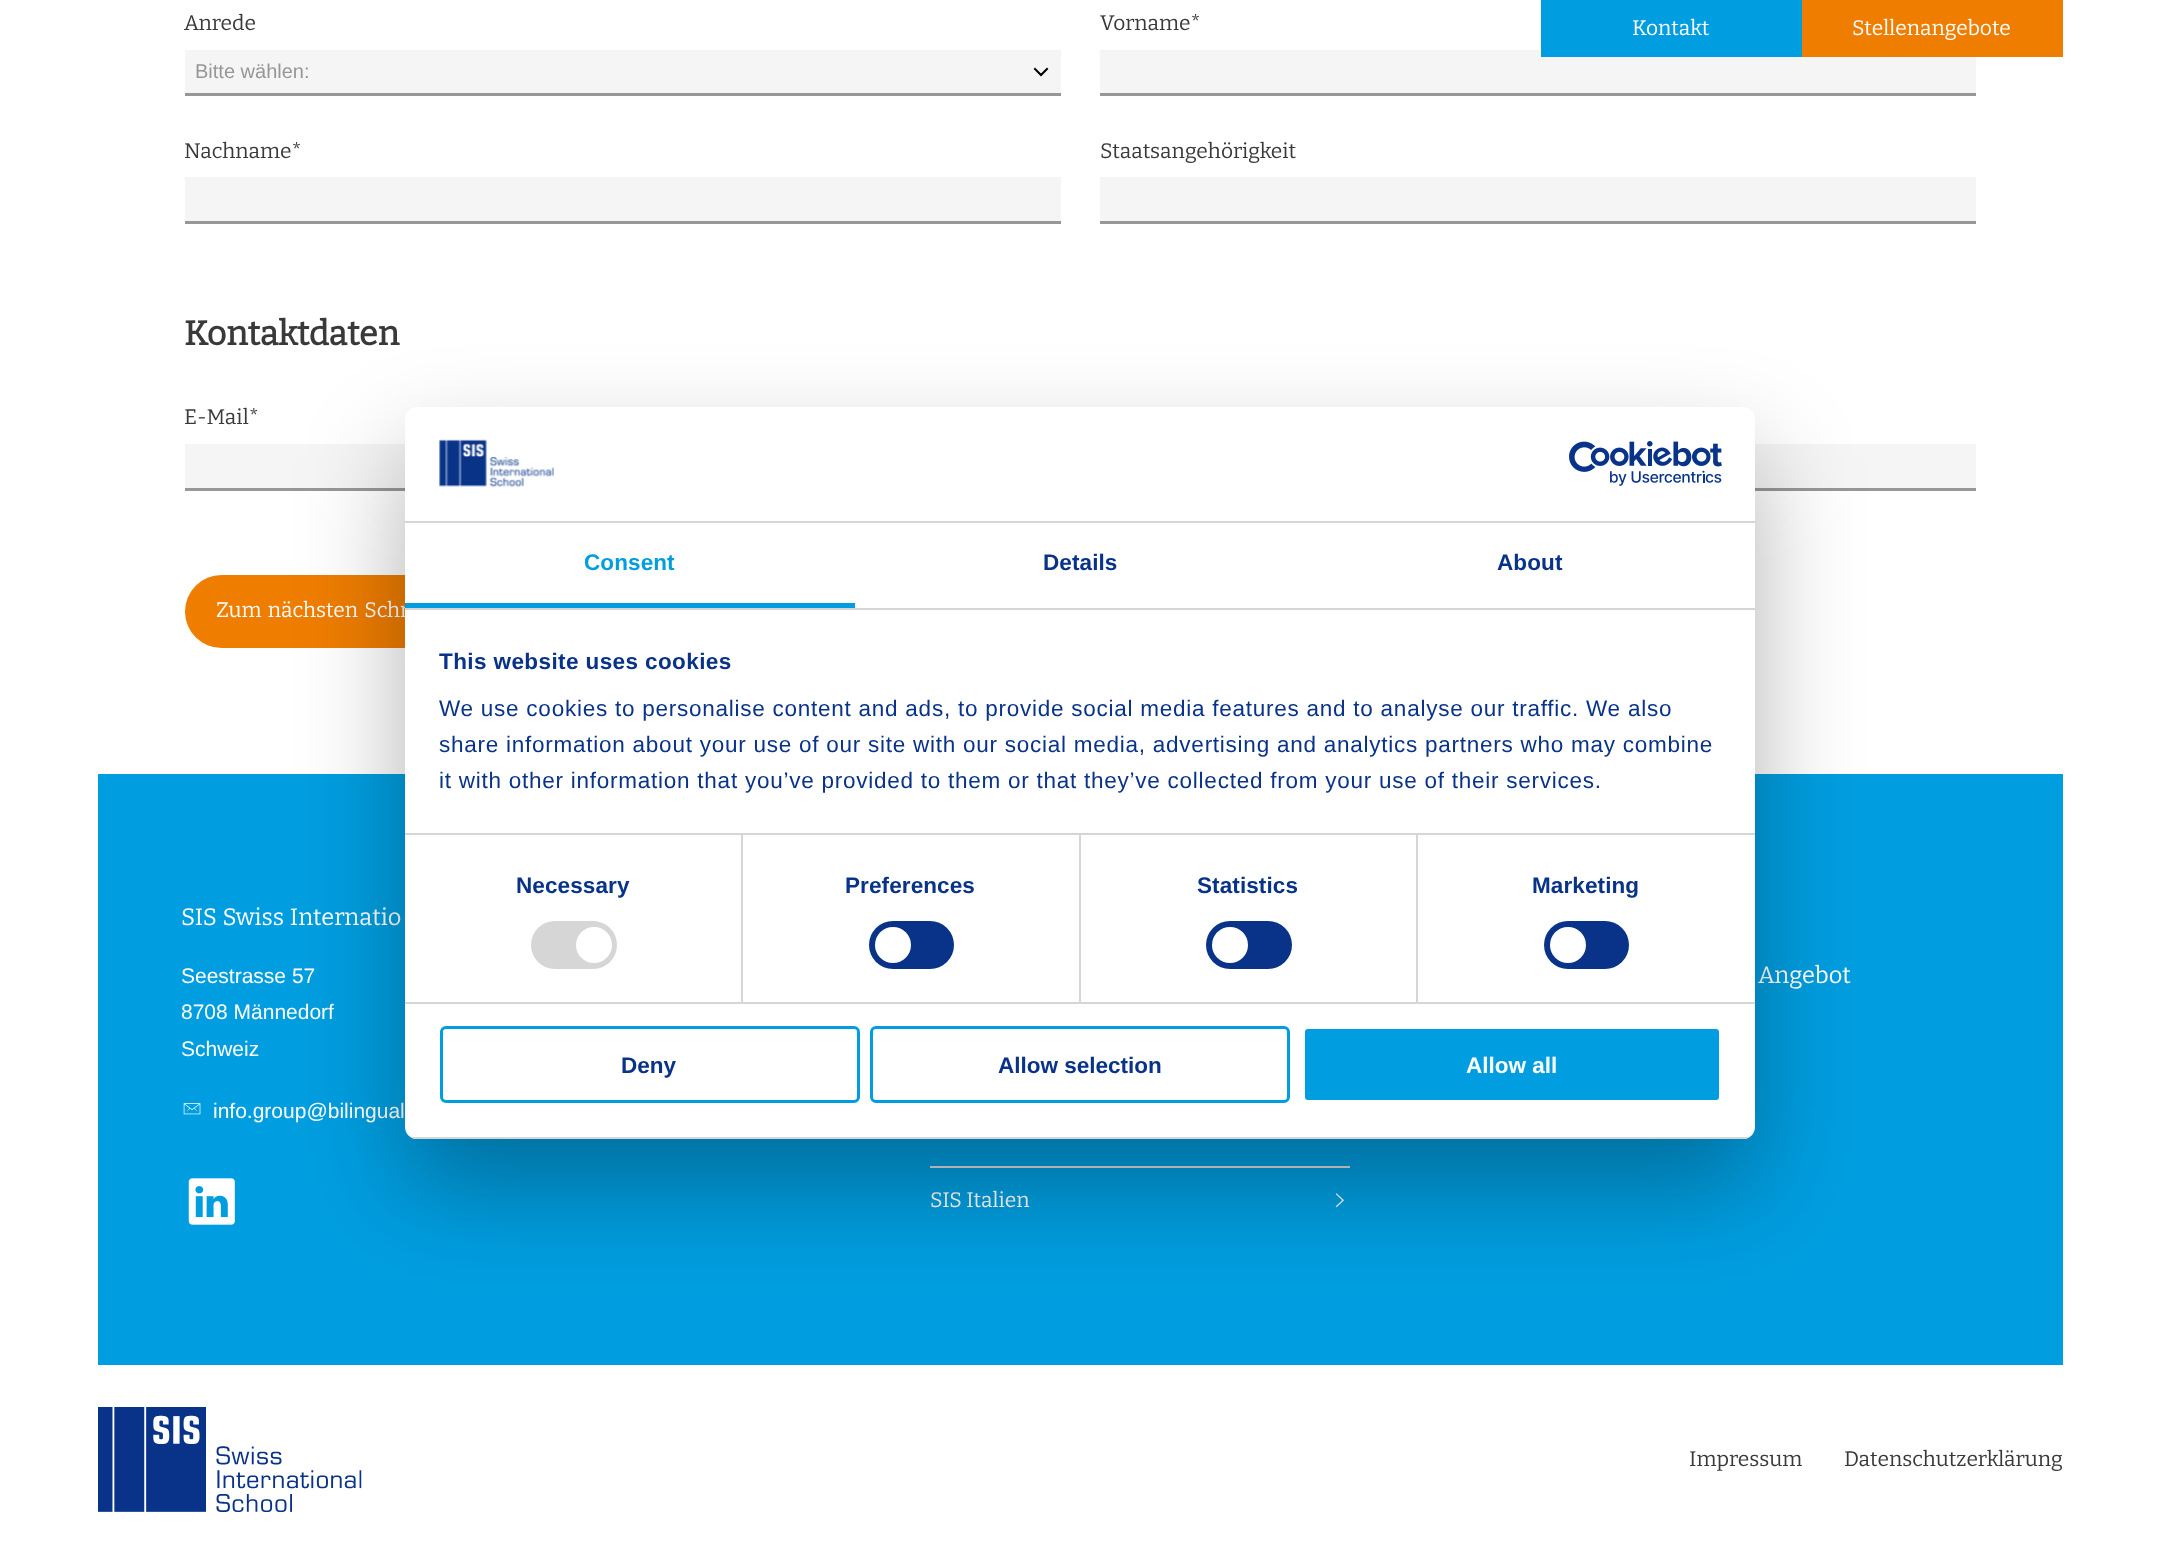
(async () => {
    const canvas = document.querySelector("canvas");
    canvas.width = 2159;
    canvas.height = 1543;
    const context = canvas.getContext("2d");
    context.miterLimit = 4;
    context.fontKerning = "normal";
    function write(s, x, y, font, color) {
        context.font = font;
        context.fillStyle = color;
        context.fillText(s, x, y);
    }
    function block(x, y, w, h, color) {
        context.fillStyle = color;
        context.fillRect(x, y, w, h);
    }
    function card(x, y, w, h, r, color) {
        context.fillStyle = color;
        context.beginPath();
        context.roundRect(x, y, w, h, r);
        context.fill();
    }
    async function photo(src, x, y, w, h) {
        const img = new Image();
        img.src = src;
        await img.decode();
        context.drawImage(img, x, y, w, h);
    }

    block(0, 0, 2159, 1543, "rgb(255, 255, 255)");
    write("Anrede", 184, 30, "21px Bitter", "rgb(57, 57, 57)");
    block(185, 50, 876, 43, "rgb(245, 245, 245)");
    context.beginPath();
    context.moveTo(1035, 69);
    context.lineTo(1041, 75);
    context.lineTo(1047, 69);
    context.strokeStyle = "rgb(0, 0, 0)";
    context.lineWidth = 2;
    context.lineCap = "square";
    context.stroke();
    block(185, 93, 876, 3, "rgb(151, 151, 151)");
    write("Bitte wählen:", 195, 78, "20px Liberation Sans", "rgb(151, 151, 151)");
    write("Vorname*", 1100, 30, "21px Bitter", "rgb(57, 57, 57)");
    block(1100, 50, 876, 43, "rgb(245, 245, 245)");
    block(1100, 93, 876, 3, "rgb(151, 151, 151)");
    write("Nachname*", 184, 158, "21px Bitter", "rgb(57, 57, 57)");
    block(185, 177, 876, 44, "rgb(245, 245, 245)");
    block(185, 221, 876, 3, "rgb(151, 151, 151)");
    write("Staatsangehörigkeit", 1100, 158, "21px Bitter", "rgb(57, 57, 57)");
    block(1100, 177, 876, 44, "rgb(245, 245, 245)");
    block(1100, 221, 876, 3, "rgb(151, 151, 151)");
    write("Kontaktdaten", 184, 345, "bold 34px Bitter", "rgb(57, 57, 57)");
    write("E-Mail*", 184, 424, "21px Bitter", "rgb(57, 57, 57)");
    block(185, 444, 220, 44, "rgb(245, 245, 245)");
    block(185, 488, 220, 3, "rgb(151, 151, 151)");
    block(1755, 444, 221, 44, "rgb(245, 245, 245)");
    block(1755, 488, 221, 3, "rgb(151, 151, 151)");
    card(185, 575, 316, 73, 36.5, "rgb(239, 125, 0)");
    context.wordSpacing = "2px";
    write("Zum nächsten Schr", 216, 617, "21px Bitter", "rgb(255, 255, 255)");
    block(98, 774, 1965, 591, "rgb(0, 158, 224)");
    context.wordSpacing = "1px";
    write("SIS Swiss Internatio", 181, 925, "23.6px Bitter", "rgb(255, 255, 255)");
    context.wordSpacing = "0px";
    write("Seestrasse 57", 181, 983, "21px Liberation Sans", "rgb(255, 255, 255)");
    write("8708 Männedorf", 181, 1019, "21px Liberation Sans", "rgb(255, 255, 255)");
    write("Schweiz", 181, 1056, "21px Liberation Sans", "rgb(255, 255, 255)");
    await photo("media/1.png", 183, 1103, 18, 12);
    write("info.group@bilingual", 213, 1118, "21px Liberation Sans", "rgb(255, 255, 255)");
    await photo("media/2.png", 188, 1178, 47, 47);
    context.wordSpacing = "2px";
    write("Angebot", 1758, 983, "23.6px Bitter", "rgb(255, 255, 255)");
    block(930, 1166, 420, 2, "rgb(222, 222, 222)");
    context.wordSpacing = "0px";
    write("SIS Italien", 930, 1207, "21px Bitter", "rgb(255, 255, 255)");
    await photo("media/3.png", 1335, 1193, 9, 15);
    await photo("media/4.png", 98, 1407, 264, 105);
    write("Impressum", 1689, 1466, "21px Bitter", "rgb(57, 57, 57)");
    write("Datenschutzerklärung", 1844, 1466, "21px Bitter", "rgb(57, 57, 57)");
    block(1541, 0, 261, 57, "rgb(0, 158, 224)");
    write("Kontakt", 1632, 35, "21px Bitter", "rgb(255, 255, 255)");
    block(1802, 0, 261, 57, "rgb(239, 125, 0)");
    write("Stellenangebote", 1852, 35, "21px Bitter", "rgb(255, 255, 255)");
    context.fillStyle = "rgba(0, 0, 0, 0.3)";
    context.filter = "blur(51px)";
    context.beginPath();
    context.roundRect(405, 455, 1350, 732, 12);
    context.fill();
    context.filter = "none";
    card(405, 407, 1350, 732, 12, "rgb(255, 255, 255)");
    block(405, 521, 1350, 2, "rgb(214, 214, 214)");
    await photo("media/5.png", 439, 439, 115, 48);
    await photo("media/6.png", 1569, 441, 153, 45);
    block(405, 608, 1350, 2, "rgb(214, 214, 214)");
    block(405, 603, 450, 5, "rgb(0, 158, 224)");
    context.letterSpacing = "0.1px";
    write("Consent", 584, 570, "bold 22.5px Liberation Sans", "rgb(0, 158, 224)");
    write("Details", 1043, 570, "bold 22.5px Liberation Sans", "rgb(9, 51, 136)");
    write("About", 1497, 570, "bold 22.5px Liberation Sans", "rgb(9, 51, 136)");
    block(741, 834, 2, 168, "rgb(214, 214, 214)");
    block(1079, 834, 2, 168, "rgb(214, 214, 214)");
    block(1416, 834, 2, 168, "rgb(214, 214, 214)");
    block(405, 833, 1350, 2, "rgb(214, 214, 214)");
    context.letterSpacing = "0.4px";
    write("This website uses cookies", 439, 669, "bold 22.5px Liberation Sans", "rgb(9, 51, 136)");
    context.letterSpacing = "0.75px";
    write("We use cookies to personalise content and ads, to provide social media features and to analyse our traffic. We also", 439, 716, "22.5px Liberation Sans", "rgb(9, 51, 136)");
    write("share information about your use of our site with our social media, advertising and analytics partners who may combine", 439, 752, "22.5px Liberation Sans", "rgb(9, 51, 136)");
    write("it with other information that you’ve provided to them or that they’ve collected from your use of their services.", 439, 788, "22.5px Liberation Sans", "rgb(9, 51, 136)");
    block(405, 1002, 1350, 2, "rgb(214, 214, 214)");
    context.letterSpacing = "0.1px";
    write("Necessary", 516, 893, "bold 22.5px Liberation Sans", "rgb(9, 51, 136)");
    card(531, 921, 86, 48, 24, "rgb(214, 214, 214)");
    context.fillStyle = "rgb(255, 255, 255)";
    context.beginPath();
    context.arc(594, 945, 18, 0, Math.PI * 2);
    context.fill();
    write("Preferences", 845, 893, "bold 22.5px Liberation Sans", "rgb(9, 51, 136)");
    card(869, 921, 85, 48, 24, "rgb(9, 51, 136)");
    context.fillStyle = "rgb(255, 255, 255)";
    context.beginPath();
    context.arc(893, 945, 18, 0, Math.PI * 2);
    context.fill();
    write("Statistics", 1197, 893, "bold 22.5px Liberation Sans", "rgb(9, 51, 136)");
    card(1206, 921, 86, 48, 24, "rgb(9, 51, 136)");
    context.fillStyle = "rgb(255, 255, 255)";
    context.beginPath();
    context.arc(1230, 945, 18, 0, Math.PI * 2);
    context.fill();
    write("Marketing", 1532, 893, "bold 22.5px Liberation Sans", "rgb(9, 51, 136)");
    card(1544, 921, 85, 48, 24, "rgb(9, 51, 136)");
    context.fillStyle = "rgb(255, 255, 255)";
    context.beginPath();
    context.arc(1568, 945, 18, 0, Math.PI * 2);
    context.fill();
    context.save();
    context.beginPath();
    context.roundRect(405, 407, 1350, 732, 12);
    context.clip();
    block(405, 1137, 1350, 2, "rgb(214, 214, 214)");
    context.restore();
    context.beginPath();
    context.roundRect(441.5, 1027.5, 417, 74, 4.5);
    context.strokeStyle = "rgb(0, 158, 224)";
    context.lineWidth = 3;
    context.stroke();
    context.letterSpacing = "0px";
    write("Deny", 621, 1073, "bold 22.5px Liberation Sans", "rgb(9, 51, 136)");
    context.beginPath();
    context.roundRect(871.5, 1027.5, 417, 74, 4.5);
    context.stroke();
    write("Allow selection", 998, 1073, "bold 22.5px Liberation Sans", "rgb(9, 51, 136)");
    context.fillStyle = "rgb(0, 158, 224)";
    context.beginPath();
    context.roundRect(1303.5, 1027.5, 417, 74, 4.5);
    context.fill();
    context.strokeStyle = "rgb(255, 255, 255)";
    context.stroke();
    write("Allow all", 1466, 1073, "bold 22.5px Liberation Sans", "rgb(255, 255, 255)");
})();
